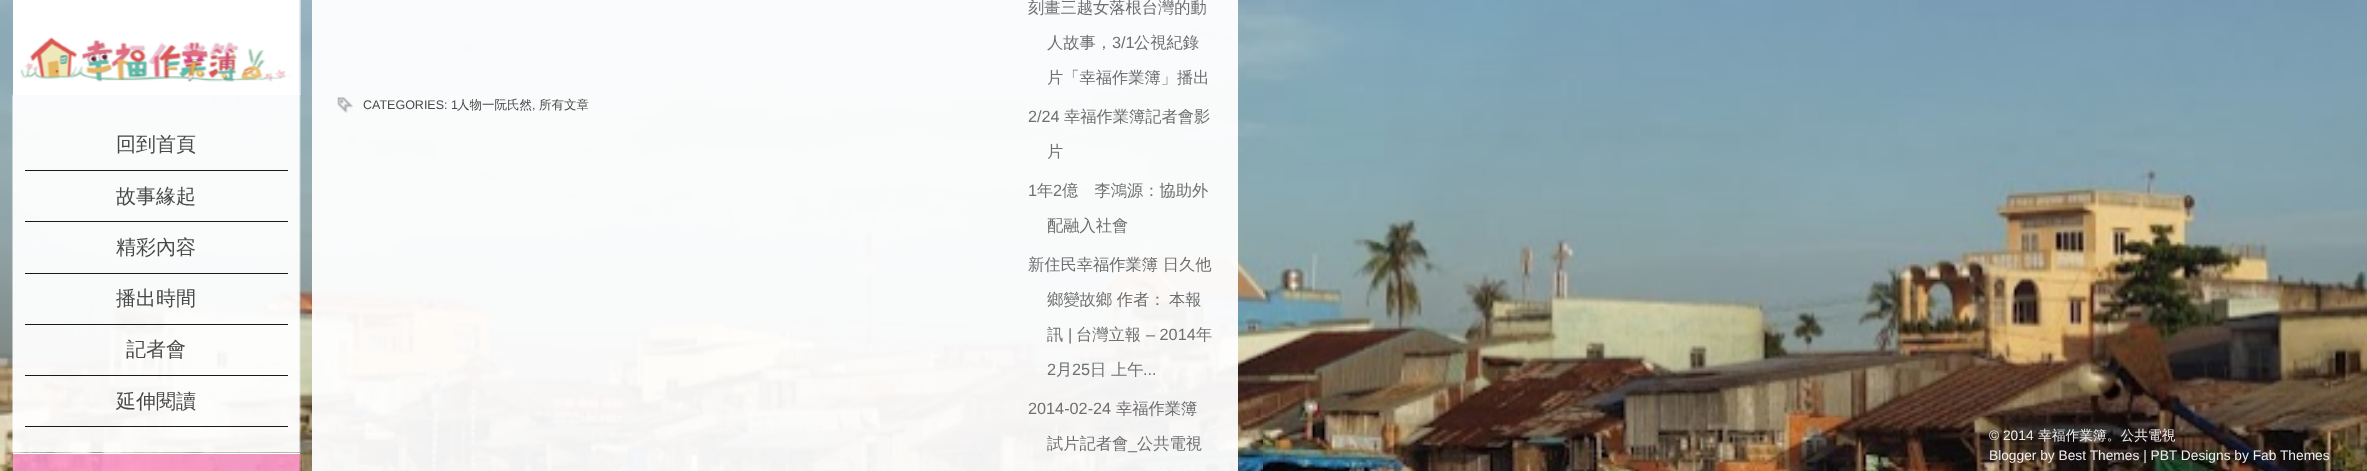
(async () => {
    const canvas = document.querySelector("canvas");
    canvas.width = 2367;
    canvas.height = 471;
    const context = canvas.getContext("2d");
    context.miterLimit = 4;
    context.fontKerning = "normal";
    function write(s, x, y, font, color) {
        context.font = font;
        context.fillStyle = color;
        context.fillText(s, x, y);
    }
    function block(x, y, w, h, color) {
        context.fillStyle = color;
        context.fillRect(x, y, w, h);
    }
    async function photo(src, x, y, w, h) {
        const img = new Image();
        img.src = src;
        await img.decode();
        context.drawImage(img, x, y, w, h);
    }

    block(0, 0, 2367, 471, "rgb(255, 255, 255)");
    await photo("media/1.png", 0, 0, 2367, 471);
    await photo("media/2.png", 13, 0, 288, 95);
    block(299, 94, 1, 1, "rgb(255, 255, 255)");
    await photo("media/3.png", 12, 95, 289, 358);
    block(25, 170, 263, 1, "rgb(25, 25, 25)");
    write("回到首頁", 116, 151, "500 20px WenQuanYi Zen Hei", "rgb(73, 73, 73)");
    block(25, 221, 263, 1, "rgb(25, 25, 25)");
    write("故事緣起", 116, 203, "500 20px WenQuanYi Zen Hei", "rgb(73, 73, 73)");
    block(25, 273, 263, 1, "rgb(25, 25, 25)");
    write("精彩內容", 116, 254, "500 20px WenQuanYi Zen Hei", "rgb(73, 73, 73)");
    block(25, 324, 263, 1, "rgb(25, 25, 25)");
    write("播出時間", 116, 305, "500 20px WenQuanYi Zen Hei", "rgb(73, 73, 73)");
    block(25, 375, 263, 1, "rgb(25, 25, 25)");
    write("記者會", 126, 356, "500 20px WenQuanYi Zen Hei", "rgb(73, 73, 73)");
    block(25, 426, 263, 1, "rgb(25, 25, 25)");
    write("延伸閱讀", 116, 408, "500 20px WenQuanYi Zen Hei", "rgb(73, 73, 73)");
    await photo("media/4.png", 13, 452, 288, 19);
    block(13, 453, 287, 1, "rgb(255, 255, 255)");
    block(312, 0, 926, 471, "rgba(255, 255, 255, 0.95)");
    await photo("media/5.png", 337, 97, 16, 16);
    write("CATEGORIES: 1", 363, 109, "12.5px Liberation Sans", "rgb(73, 73, 73)");
    write("人物一阮氏然", 457, 109, "500 12.5px WenQuanYi Zen Hei", "rgb(73, 73, 73)");
    write(",", 532, 109, "12.5px Liberation Sans", "rgb(73, 73, 73)");
    write("所有文章", 539, 109, "500 12.5px WenQuanYi Zen Hei", "rgb(73, 73, 73)");
    write("刻畫三越女落根台灣的動", 1028, 13, "500 16.25px WenQuanYi Zen Hei", "rgb(111, 111, 111)");
    write("人故事，", 1047, 48, "500 16.25px WenQuanYi Zen Hei", "rgb(111, 111, 111)");
    write("3/1", 1112, 48, "16.25px Liberation Sans", "rgb(111, 111, 111)");
    write("公視紀錄", 1134, 48, "500 16.25px WenQuanYi Zen Hei", "rgb(111, 111, 111)");
    write("片「幸福作業簿」播出", 1047, 83, "500 16.25px WenQuanYi Zen Hei", "rgb(111, 111, 111)");
    write("2/24", 1028, 122, "16.25px Liberation Sans", "rgb(111, 111, 111)");
    write("幸福作業簿記者會影", 1064, 122, "500 16.25px WenQuanYi Zen Hei", "rgb(111, 111, 111)");
    write("片", 1047, 157, "500 16.25px WenQuanYi Zen Hei", "rgb(111, 111, 111)");
    write("1", 1028, 196, "16.25px Liberation Sans", "rgb(111, 111, 111)");
    write("年", 1037, 196, "500 16.25px WenQuanYi Zen Hei", "rgb(111, 111, 111)");
    write("2", 1053, 196, "16.25px Liberation Sans", "rgb(111, 111, 111)");
    write("億　李鴻源：協助外", 1062, 196, "500 16.25px WenQuanYi Zen Hei", "rgb(111, 111, 111)");
    write("配融入社會", 1047, 231, "500 16.25px WenQuanYi Zen Hei", "rgb(111, 111, 111)");
    write("新住民幸福作業簿 日久他", 1028, 270, "500 16.25px WenQuanYi Zen Hei", "rgb(111, 111, 111)");
    write("鄉變故鄉 作者：", 1047, 305, "500 16.25px WenQuanYi Zen Hei", "rgb(111, 111, 111)");
    write("本報", 1169, 305, "500 16.25px WenQuanYi Zen Hei", "rgb(111, 111, 111)");
    write("訊", 1047, 340, "500 16.25px WenQuanYi Zen Hei", "rgb(111, 111, 111)");
    write("|", 1068, 340, "16.25px Liberation Sans", "rgb(111, 111, 111)");
    write("台灣立報", 1076, 340, "500 16.25px WenQuanYi Zen Hei", "rgb(111, 111, 111)");
    write("– 2014", 1146, 340, "16.25px Liberation Sans", "rgb(111, 111, 111)");
    write("年", 1196, 340, "500 16.25px WenQuanYi Zen Hei", "rgb(111, 111, 111)");
    write("2", 1047, 375, "16.25px Liberation Sans", "rgb(111, 111, 111)");
    write("月", 1056, 375, "500 16.25px WenQuanYi Zen Hei", "rgb(111, 111, 111)");
    write("25", 1072, 375, "16.25px Liberation Sans", "rgb(111, 111, 111)");
    write("日 上午", 1090, 375, "500 16.25px WenQuanYi Zen Hei", "rgb(111, 111, 111)");
    write("...", 1143, 375, "16.25px Liberation Sans", "rgb(111, 111, 111)");
    write("2014-02-24", 1028, 414, "16.25px Liberation Sans", "rgb(111, 111, 111)");
    write("幸福作業簿", 1116, 414, "500 16.25px WenQuanYi Zen Hei", "rgb(111, 111, 111)");
    write("試片記者會", 1047, 449, "500 16.25px WenQuanYi Zen Hei", "rgb(111, 111, 111)");
    write("_", 1128, 449, "16.25px Liberation Sans", "rgb(111, 111, 111)");
    write("公共電視", 1137, 449, "500 16.25px WenQuanYi Zen Hei", "rgb(111, 111, 111)");
    write("© 2014", 1989, 440, "13.75px Liberation Sans", "rgb(238, 238, 238)");
    write("幸福作業簿。公共電視", 2038, 440, "500 13.75px WenQuanYi Zen Hei", "rgb(238, 238, 238)");
    write("Blogger by Best Themes | PBT Designs by Fab Themes", 1989, 460, "13.75px Liberation Sans", "rgb(238, 238, 238)");
})();
